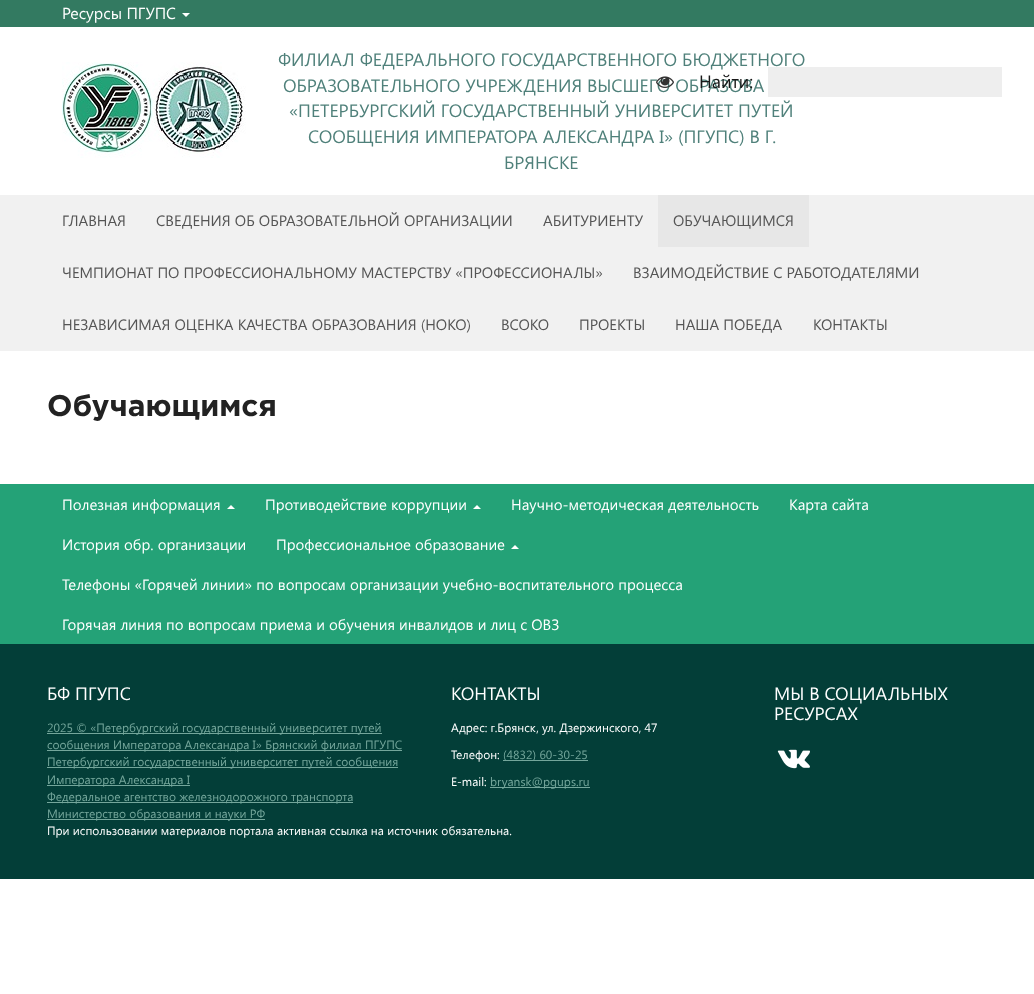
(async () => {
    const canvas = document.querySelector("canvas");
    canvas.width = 1034;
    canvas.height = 994;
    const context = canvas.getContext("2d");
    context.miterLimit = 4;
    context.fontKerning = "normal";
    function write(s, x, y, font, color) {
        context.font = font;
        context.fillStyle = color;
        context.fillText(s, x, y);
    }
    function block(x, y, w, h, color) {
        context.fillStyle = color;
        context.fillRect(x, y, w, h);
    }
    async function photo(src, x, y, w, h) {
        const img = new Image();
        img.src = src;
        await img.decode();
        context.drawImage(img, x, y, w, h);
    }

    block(0, 0, 1034, 994, "rgb(255, 255, 255)");
    block(0, 0, 1034, 27, "rgb(51, 122, 97)");
    write("Ресурсы ПГУПС", 62, 19, "16px Segoe UI", "rgb(255, 255, 255)");
    context.beginPath();
    context.moveTo(182, 13);
    context.lineTo(190, 13);
    context.lineTo(186, 17);
    context.closePath();
    context.fill();
    await photo("media/1.png", 62, 62, 184, 96);
    write("ФИЛИАЛ ФЕДЕРАЛЬНОГО ГОСУДАРСТВЕННОГО БЮДЖЕТНОГО", 278, 66, "18px Segoe UI", "rgb(79, 128, 122)");
    write("ОБРАЗОВАТЕЛЬНОГО УЧРЕЖДЕНИЯ ВЫСШЕГО ОБРАЗОВА", 283, 92, "18px Segoe UI", "rgb(79, 128, 122)");
    write("«ПЕТЕРБУРГСКИЙ ГОСУДАРСТВЕННЫЙ УНИВЕРСИТЕТ ПУТЕЙ", 289, 117, "18px Segoe UI", "rgb(79, 128, 122)");
    write("СООБЩЕНИЯ ИМПЕРАТОРА АЛЕКСАНДРА I» (ПГУПС) В Г.", 308, 143, "18px Segoe UI", "rgb(79, 128, 122)");
    write("БРЯНСКЕ", 504, 169, "18px Segoe UI", "rgb(79, 128, 122)");
    await photo("media/2.png", 656, 76, 18, 12);
    write("Найти:", 699, 88, "18px Segoe UI", "rgb(25, 25, 25)");
    block(768, 67, 234, 30, "rgb(238, 238, 238)");
    block(0, 195, 1034, 156, "rgb(241, 241, 241)");
    write("ГЛАВНАЯ", 62, 226, "15px Segoe UI", "rgb(85, 85, 85)");
    write("СВЕДЕНИЯ ОБ ОБРАЗОВАТЕЛЬНОЙ ОРГАНИЗАЦИИ", 156, 226, "15px Segoe UI", "rgb(85, 85, 85)");
    write("АБИТУРИЕНТУ", 543, 226, "15px Segoe UI", "rgb(85, 85, 85)");
    block(658, 195, 151, 52, "rgb(231, 231, 231)");
    write("ОБУЧАЮЩИМСЯ", 673, 226, "15px Segoe UI", "rgb(85, 85, 85)");
    write("ЧЕМПИОНАТ ПО ПРОФЕССИОНАЛЬНОМУ МАСТЕРСТВУ «ПРОФЕССИОНАЛЫ»", 62, 278, "15px Segoe UI", "rgb(85, 85, 85)");
    write("ВЗАИМОДЕЙСТВИЕ С РАБОТОДАТЕЛЯМИ", 633, 278, "15px Segoe UI", "rgb(85, 85, 85)");
    write("НЕЗАВИСИМАЯ ОЦЕНКА КАЧЕСТВА ОБРАЗОВАНИЯ (НОКО)", 62, 330, "15px Segoe UI", "rgb(85, 85, 85)");
    write("ВСОКО", 501, 330, "15px Segoe UI", "rgb(85, 85, 85)");
    write("ПРОЕКТЫ", 579, 330, "15px Segoe UI", "rgb(85, 85, 85)");
    write("НАША ПОБЕДА", 675, 330, "15px Segoe UI", "rgb(85, 85, 85)");
    write("КОНТАКТЫ", 813, 330, "15px Segoe UI", "rgb(85, 85, 85)");
    write("Обучающимся", 47, 416, "bold 30px Gotham", "rgb(34, 34, 34)");
    block(0, 484, 1034, 160, "rgb(36, 162, 119)");
    write("Полезная информация", 62, 510, "15px Segoe UI", "rgb(255, 255, 255)");
    context.beginPath();
    context.moveTo(235, 509);
    context.lineTo(227, 509);
    context.lineTo(231, 505);
    context.closePath();
    context.fill();
    write("Противодействие коррупции", 265, 510, "15px Segoe UI", "rgb(255, 255, 255)");
    context.beginPath();
    context.moveTo(481, 509);
    context.lineTo(473, 509);
    context.lineTo(477, 505);
    context.closePath();
    context.fill();
    write("Научно-методическая деятельность", 511, 510, "15px Segoe UI", "rgb(255, 255, 255)");
    write("Карта сайта", 789, 510, "15px Segoe UI", "rgb(255, 255, 255)");
    write("История обр. организации", 62, 550, "15px Segoe UI", "rgb(255, 255, 255)");
    write("Профессиональное образование", 276, 550, "15px Segoe UI", "rgb(255, 255, 255)");
    context.beginPath();
    context.moveTo(519, 549);
    context.lineTo(511, 549);
    context.lineTo(515, 545);
    context.closePath();
    context.fill();
    write("Телефоны «Горячей линии» по вопросам организации учебно-воспитательного процесса", 62, 590, "15px Segoe UI", "rgb(255, 255, 255)");
    write("Горячая линия по вопросам приема и обучения инвалидов и лиц с ОВЗ", 62, 630, "15px Segoe UI", "rgb(255, 255, 255)");
    block(0, 644, 1034, 235, "rgb(3, 62, 56)");
    write("БФ ПГУПС", 47, 700, "18px Segoe UI", "rgb(255, 255, 255)");
    block(47, 733, 335, 1, "rgb(116, 166, 155)");
    write("2025 © «Петербургский государственный университет путей", 47, 732, "12px Segoe UI", "rgb(116, 166, 155)");
    block(47, 750, 355, 1, "rgb(116, 166, 155)");
    write("сообщения Императора Александра I» Брянский филиал ПГУПС", 47, 749, "12px Segoe UI", "rgb(116, 166, 155)");
    block(47, 767, 351, 1, "rgb(116, 166, 155)");
    write("Петербургский государственный университет путей сообщения", 47, 766, "12px Segoe UI", "rgb(116, 166, 155)");
    block(47, 785, 143, 1, "rgb(116, 166, 155)");
    write("Императора Александра I", 47, 784, "12px Segoe UI", "rgb(116, 166, 155)");
    block(47, 802, 306, 1, "rgb(116, 166, 155)");
    write("Федеральное агентство железнодорожного транспорта", 47, 801, "12px Segoe UI", "rgb(116, 166, 155)");
    block(47, 819, 218, 1, "rgb(116, 166, 155)");
    write("Министерство образования и науки РФ", 47, 818, "12px Segoe UI", "rgb(116, 166, 155)");
    write("КОНТАКТЫ", 451, 700, "18px Segoe UI", "rgb(255, 255, 255)");
    write("Адрес: г.Брянск, ул. Дзержинского, 47", 451, 732, "12px Segoe UI", "rgb(255, 255, 255)");
    write("Телефон:", 451, 759, "12px Segoe UI", "rgb(255, 255, 255)");
    block(503, 760, 85, 1, "rgb(116, 166, 155)");
    write("(4832) 60-30-25", 503, 759, "12px Segoe UI", "rgb(116, 166, 155)");
    write("E-mail:", 451, 786, "12px Segoe UI", "rgb(255, 255, 255)");
    block(490, 787, 100, 1, "rgb(116, 166, 155)");
    write("bryansk@pgups.ru", 490, 786, "12px Segoe UI", "rgb(116, 166, 155)");
    write("МЫ В СОЦИАЛЬНЫХ", 774, 700, "18px Segoe UI", "rgb(255, 255, 255)");
    write("РЕСУРСАХ", 774, 720, "18px Segoe UI", "rgb(255, 255, 255)");
    await photo("media/3.png", 777, 749, 33, 20);
    write("При использовании материалов портала активная ссылка на источник обязательна.", 47, 835, "12px Segoe UI", "rgb(255, 255, 255)");
})();
